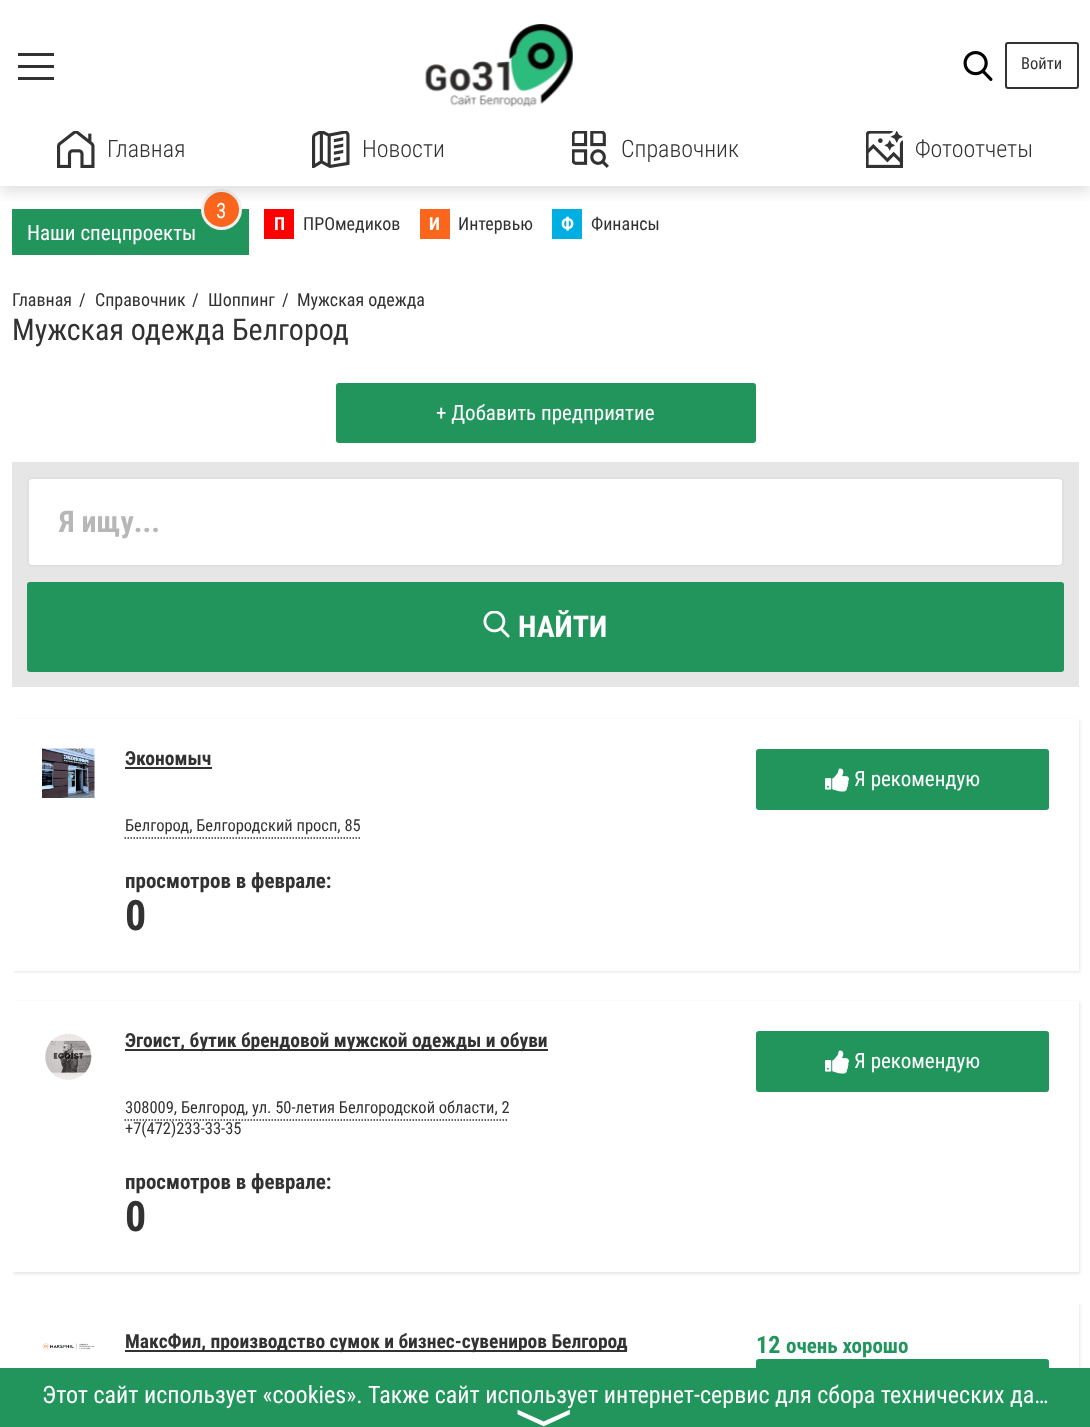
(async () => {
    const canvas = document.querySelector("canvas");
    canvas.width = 1090;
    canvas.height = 1427;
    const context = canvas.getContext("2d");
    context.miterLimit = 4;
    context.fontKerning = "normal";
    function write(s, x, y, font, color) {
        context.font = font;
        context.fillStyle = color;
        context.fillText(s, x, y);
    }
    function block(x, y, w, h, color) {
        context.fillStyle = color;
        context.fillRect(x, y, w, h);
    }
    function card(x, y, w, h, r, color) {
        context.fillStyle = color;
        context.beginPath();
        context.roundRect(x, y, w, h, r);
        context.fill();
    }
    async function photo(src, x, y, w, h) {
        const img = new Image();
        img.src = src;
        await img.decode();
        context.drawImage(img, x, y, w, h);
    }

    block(0, 0, 1090, 1427, "rgb(255, 255, 255)");
    block(12, 209, 237, 46, "rgb(34, 149, 93)");
    context.fillStyle = "rgb(251, 102, 28)";
    context.beginPath();
    context.arc(221.5, 209.5, 19, 0, Math.PI * 2);
    context.fill();
    context.strokeStyle = "rgb(240, 240, 240)";
    context.lineWidth = 3;
    context.stroke();
    block(264, 209, 30, 30, "rgb(255, 0, 0)");
    block(420, 209, 30, 30, "rgb(251, 102, 28)");
    block(552, 209, 30, 30, "rgb(0, 175, 225)");
    context.save();
    context.beginPath();
    context.rect(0, 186, 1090, 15);
    context.clip();
    context.fillStyle = "rgba(78, 78, 78, 0.2)";
    context.filter = "blur(7.5px)";
    context.beginPath();
    context.rect(0, 5, 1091, 186);
    context.fill();
    context.filter = "none";
    context.restore();
    block(18, 65, 36, 3, "rgb(50, 50, 50)");
    block(18, 53, 36, 3, "rgb(50, 50, 50)");
    block(18, 77, 36, 3, "rgb(50, 50, 50)");
    await photo("media/1.png", 425, 24, 148, 83);
    await photo("media/2.png", 963, 51, 30, 30);
    context.beginPath();
    context.roundRect(1006, 43, 72, 45, 2);
    context.strokeStyle = "rgb(50, 50, 50)";
    context.lineWidth = 2;
    context.stroke();
    write("Войти", 1021, 69, "16.5px Roboto Condensed", "rgb(50, 50, 50)");
    await photo("media/3.png", 57, 131, 38, 37);
    write("Главная", 107, 157, "300 24px Roboto Condensed", "rgb(50, 50, 50)");
    await photo("media/4.png", 312, 131, 38, 37);
    write("Новости", 362, 157, "300 24px Roboto Condensed", "rgb(50, 50, 50)");
    await photo("media/5.png", 572, 131, 37, 37);
    write("Справочник", 621, 157, "300 24px Roboto Condensed", "rgb(50, 50, 50)");
    await photo("media/6.png", 866, 131, 37, 37);
    write("Фотоотчеты", 915, 157, "300 24px Roboto Condensed", "rgb(50, 50, 50)");
    write("3", 216, 218, "21px Roboto Condensed", "rgb(255, 255, 255)");
    write("Наши спецпроекты", 27, 240, "21px Roboto Condensed", "rgb(255, 255, 255)");
    write("П", 274, 230, "bold 18px Roboto Condensed", "rgb(255, 255, 255)");
    write("ПРОмедиков", 303, 230, "18px Roboto Condensed", "rgb(50, 50, 50)");
    write("И", 429, 230, "bold 18px Roboto Condensed", "rgb(255, 255, 255)");
    write("Интервью", 458, 230, "18px Roboto Condensed", "rgb(50, 50, 50)");
    write("Ф", 561, 230, "bold 18px Roboto Condensed", "rgb(255, 255, 255)");
    write("Финансы", 591, 230, "18px Roboto Condensed", "rgb(50, 50, 50)");
    write("Главная", 12, 306, "18px Roboto Condensed", "rgb(50, 50, 50)");
    write("/", 79, 306, "18px Roboto Condensed", "rgb(50, 50, 50)");
    write("Справочник", 95, 306, "18px Roboto Condensed", "rgb(50, 50, 50)");
    write("/", 192, 306, "18px Roboto Condensed", "rgb(50, 50, 50)");
    write("Шоппинг", 208, 306, "18px Roboto Condensed", "rgb(50, 50, 50)");
    write("/", 282, 306, "18px Roboto Condensed", "rgb(50, 50, 50)");
    write("Мужская одежда", 297, 306, "18px Roboto Condensed", "rgb(50, 50, 50)");
    write("Мужская одежда Белгород", 12, 340, "30px Roboto Condensed", "rgb(50, 50, 50)");
    card(336, 383, 420, 60, 3, "rgb(34, 149, 93)");
    write("+ Добавить предприятие", 436, 420, "21px Roboto Condensed", "rgb(255, 255, 255)");
    block(12, 462, 1067, 225, "rgb(230, 230, 230)");
    card(27, 477, 1037, 90, 5, "rgb(255, 255, 255)");
    context.beginPath();
    context.roundRect(28, 478, 1035, 88, 4);
    context.strokeStyle = "rgba(50, 50, 50, 0.15)";
    context.stroke();
    write("Я ищу...", 59, 532, "bold 30px Roboto Condensed", "rgb(183, 183, 183)");
    card(27, 582, 1037, 90, 3, "rgb(34, 149, 93)");
    await photo("media/7.png", 483, 611, 27, 27);
    write("НАЙТИ", 518, 637, "bold 30px Roboto Condensed", "rgb(255, 255, 255)");
    context.fillStyle = "rgba(90, 90, 90, 0.15)";
    context.filter = "blur(1.5px)";
    context.beginPath();
    context.rect(14, 720, 1066, 252);
    context.fill();
    context.filter = "none";
    block(12, 719, 1067, 252, "rgb(255, 255, 255)");
    await photo("media/8.png", 42, 748, 53, 50);
    write("Экономыч", 125, 765, "bold 19.5px Roboto Condensed", "rgb(50, 50, 50)");
    block(125, 767, 87, 2, "rgb(50, 50, 50)");
    context.beginPath();
    context.moveTo(124.5, 838);
    context.lineTo(360, 838);
    context.strokeStyle = "rgb(50, 50, 50)";
    context.lineWidth = 1.5;
    context.setLineDash([1.5, 1.5]);
    context.stroke();
    write("Белгород, Белгородский просп, 85", 125, 831, "16.5px Roboto Condensed", "rgb(50, 50, 50)");
    card(756, 749, 293, 61, 3, "rgb(34, 149, 93)");
    await photo("media/9.png", 825, 768, 24, 24);
    write("Я рекомендую", 854, 786, "21px Roboto Condensed", "rgb(255, 255, 255)");
    write("просмотров в феврале:", 125, 888, "bold 21px Roboto Condensed", "rgb(50, 50, 50)");
    write("0", 125, 930, "bold 42px Roboto Condensed", "rgb(50, 50, 50)");
    context.fillStyle = "rgba(90, 90, 90, 0.15)";
    context.filter = "blur(1.5px)";
    context.beginPath();
    context.rect(14, 1002, 1066, 272);
    context.fill();
    context.filter = "none";
    block(12, 1001, 1067, 271, "rgb(255, 255, 255)");
    await photo("media/10.png", 45, 1033, 47, 47);
    block(125, 1049, 423, 2, "rgb(50, 50, 50)");
    write("Эгоист, бутик брендовой мужской одежды и обуви", 125, 1047, "bold 19.5px Roboto Condensed", "rgb(50, 50, 50)");
    context.beginPath();
    context.moveTo(124.5, 1120);
    context.lineTo(508.5, 1120);
    context.stroke();
    write("308009, Белгород, ул. 50-летия Белгородской области, 2", 125, 1113, "16.5px Roboto Condensed", "rgb(50, 50, 50)");
    write("+7(472)233-33-35", 125, 1134, "16.5px Roboto Condensed", "rgb(50, 50, 50)");
    card(756, 1031, 293, 61, 3, "rgb(34, 149, 93)");
    await photo("media/9.png", 825, 1050, 24, 24);
    write("Я рекомендую", 854, 1068, "21px Roboto Condensed", "rgb(255, 255, 255)");
    write("просмотров в феврале:", 125, 1189, "bold 21px Roboto Condensed", "rgb(50, 50, 50)");
    write("0", 125, 1231, "bold 42px Roboto Condensed", "rgb(50, 50, 50)");
    context.fillStyle = "rgba(90, 90, 90, 0.15)";
    context.filter = "blur(1.5px)";
    context.beginPath();
    context.rect(14, 1304, 1066, 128);
    context.fill();
    context.filter = "none";
    block(12, 1302, 1067, 66, "rgb(255, 255, 255)");
    await photo("media/11.png", 42, 1343, 52, 7);
    block(125, 1350, 502, 2, "rgb(50, 50, 50)");
    write("МаксФил, производство сумок и бизнес-сувениров Белгород", 125, 1348, "bold 19.5px Roboto Condensed", "rgb(50, 50, 50)");
    write("12", 756, 1353, "bold 24px Roboto Condensed", "rgb(34, 149, 93)");
    write("очень хорошо", 786, 1353, "bold 21px Roboto Condensed", "rgb(34, 149, 93)");
    card(756, 1359, 293, 63, 3, "rgb(34, 149, 93)");
    block(0, 1368, 1090, 59, "rgb(34, 149, 93)");
    write("Этот сайт использует «cookies». Также сайт использует интернет-сервис для сбора технических да…", 42, 1403, "24px Roboto Condensed", "rgb(255, 255, 255)");
    context.font = "60px FreeSans";
    context.save();
    context.translate(526, 1408);
    context.rotate(90 * Math.PI / 180);
    context.fillText("〉", 0, 0);
    context.restore();
})();
